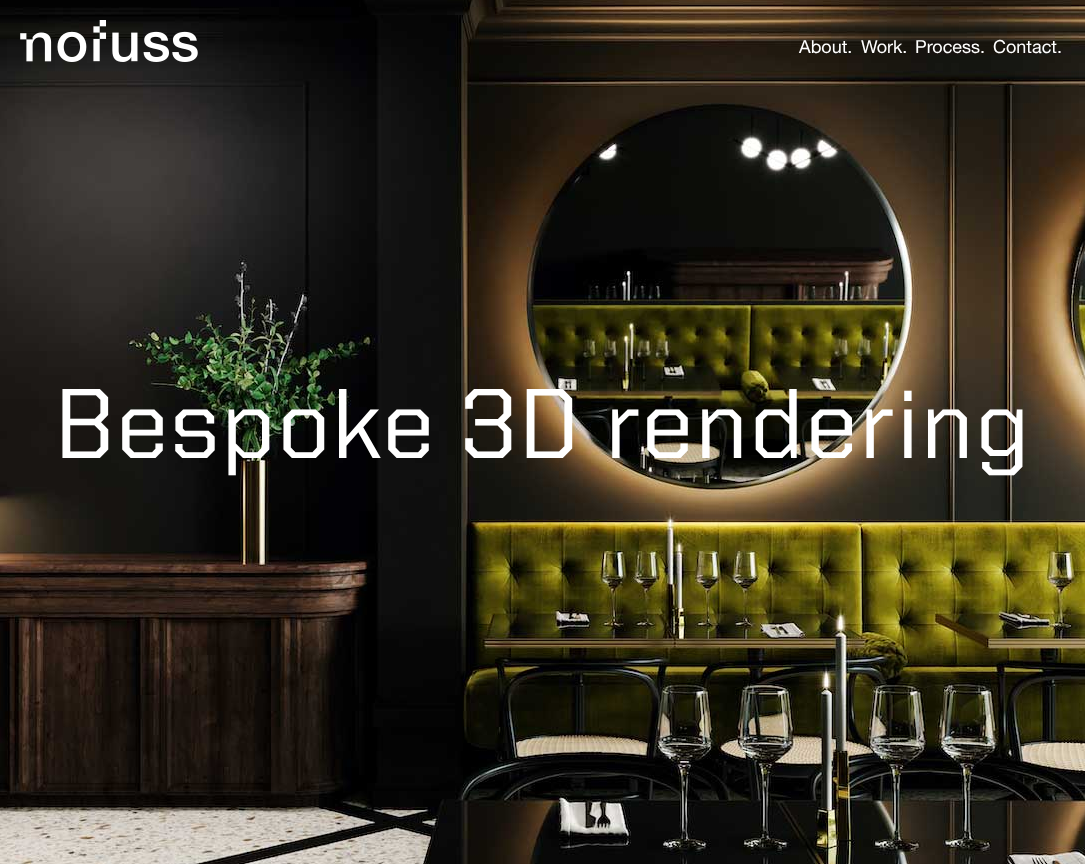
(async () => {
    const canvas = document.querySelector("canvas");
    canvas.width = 1085;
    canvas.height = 864;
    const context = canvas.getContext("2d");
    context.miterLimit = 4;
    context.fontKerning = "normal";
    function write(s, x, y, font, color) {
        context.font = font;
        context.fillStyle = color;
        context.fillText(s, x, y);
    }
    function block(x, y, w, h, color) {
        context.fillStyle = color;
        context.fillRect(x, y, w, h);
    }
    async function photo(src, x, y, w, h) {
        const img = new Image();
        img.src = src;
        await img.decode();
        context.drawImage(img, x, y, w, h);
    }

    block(0, 0, 1085, 864, "rgb(255, 255, 255)");
    await photo("media/2.png", 0, 0, 1085, 864);
    await photo("media/1.png", 20, 20, 178, 42);
    write("About.", 799, 53, "18px Helvetica Neue", "rgb(255, 255, 255)");
    write("Work.", 861, 53, "18px Helvetica Neue", "rgb(255, 255, 255)");
    write("Process.", 915, 53, "18px Helvetica Neue", "rgb(255, 255, 255)");
    write("Contact.", 993, 53, "18px Helvetica Neue", "rgb(255, 255, 255)");
    write("Bespoke 3D rendering", 54, 458, "500 100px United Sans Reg", "rgb(255, 255, 255)");
})();
